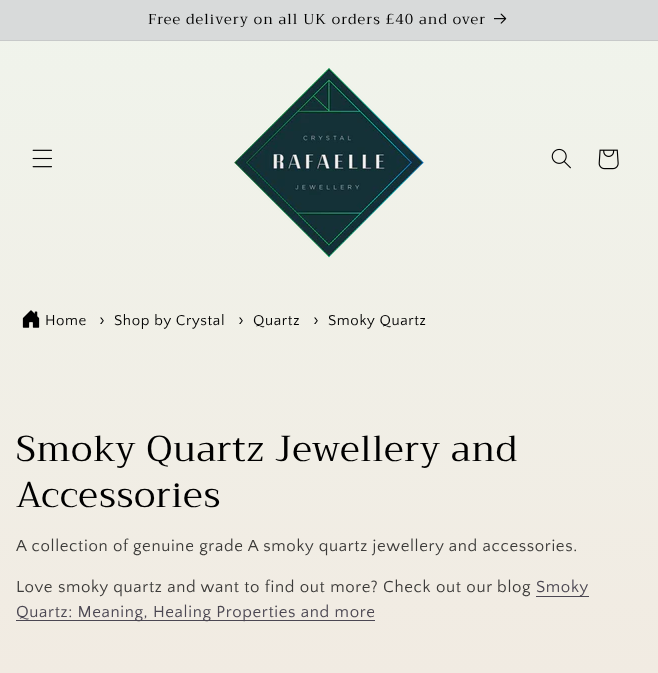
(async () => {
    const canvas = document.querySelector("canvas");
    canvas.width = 658;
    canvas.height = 673;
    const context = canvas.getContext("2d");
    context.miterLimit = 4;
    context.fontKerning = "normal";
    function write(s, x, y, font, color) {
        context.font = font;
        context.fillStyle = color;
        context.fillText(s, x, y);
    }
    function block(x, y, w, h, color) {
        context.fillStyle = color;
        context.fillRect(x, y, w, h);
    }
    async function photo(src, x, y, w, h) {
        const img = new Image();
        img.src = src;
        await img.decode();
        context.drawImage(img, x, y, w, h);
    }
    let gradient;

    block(0, 0, 658, 673, "rgb(255, 255, 255)");
    gradient = context.createLinearGradient(329, 0, 329, 673);
    gradient.addColorStop(0, "rgb(240, 244, 236)");
    gradient.addColorStop(1, "rgb(241, 235, 226)");
    context.fillStyle = gradient;
    context.fillRect(0, 41, 658, 632);
    gradient = context.createLinearGradient(329, 673, 329, 0);
    gradient.addColorStop(0, "rgb(20, 52, 52)");
    gradient.addColorStop(0.43, "rgb(216, 218, 218)");
    gradient.addColorStop(1, "rgb(216, 218, 218)");
    context.fillStyle = gradient;
    context.fillRect(0, 0, 658, 40);
    block(0, 40, 658, 1, "rgb(199, 201, 201)");
    context.letterSpacing = "1.05px";
    write("Free delivery on all UK orders £40 and over", 148, 24, "14.4px Trirong", "rgb(0, 0, 0)");
    await photo("media/1.png", 494, 13, 13, 11);
    await photo("media/2.png", 32, 149, 20, 19);
    await photo("media/3.png", 234, 68, 190, 190);
    await photo("media/4.png", 551, 148, 20, 21);
    await photo("media/5.png", 598, 149, 21, 21);
    await photo("media/6.png", 22, 310, 18, 18);
    context.letterSpacing = "0.63px";
    write("Home", 45, 325, "15px Quattrocento Sans", "rgb(0, 0, 0)");
    write("›", 99, 325, "18px Quattrocento Sans", "rgb(0, 0, 0)");
    write("Shop by Crystal", 114, 325, "15px Quattrocento Sans", "rgb(0, 0, 0)");
    write("›", 238, 325, "18px Quattrocento Sans", "rgb(0, 0, 0)");
    write("Quartz", 253, 325, "15px Quattrocento Sans", "rgb(0, 0, 0)");
    write("›", 313, 325, "18px Quattrocento Sans", "rgb(0, 0, 0)");
    write("Smoky Quartz", 328, 325, "15px Quattrocento Sans", "rgb(0, 0, 0)");
    context.letterSpacing = "0.75px";
    write("Smoky Quartz Jewellery and", 16, 461, "36px Trirong", "rgb(0, 0, 0)");
    write("Accessories", 16, 507, "36px Trirong", "rgb(0, 0, 0)");
    context.letterSpacing = "0.63px";
    write("A collection of genuine grade A smoky quartz jewellery and accessories.", 16, 551, "16.8px Quattrocento Sans", "rgb(60, 59, 57)");
    write("Love smoky quartz and want to find out more? Check out our blog", 16, 592, "16.8px Quattrocento Sans", "rgb(60, 59, 57)");
    block(536, 596, 53, 1, "rgb(75, 71, 83)");
    write("Smoky", 536, 592, "16.8px Quattrocento Sans", "rgb(75, 71, 82)");
    block(16, 620, 359, 1, "rgb(75, 71, 83)");
    write("Quartz: Meaning, Healing Properties and more", 16, 617, "16.8px Quattrocento Sans", "rgb(75, 71, 82)");
})();
